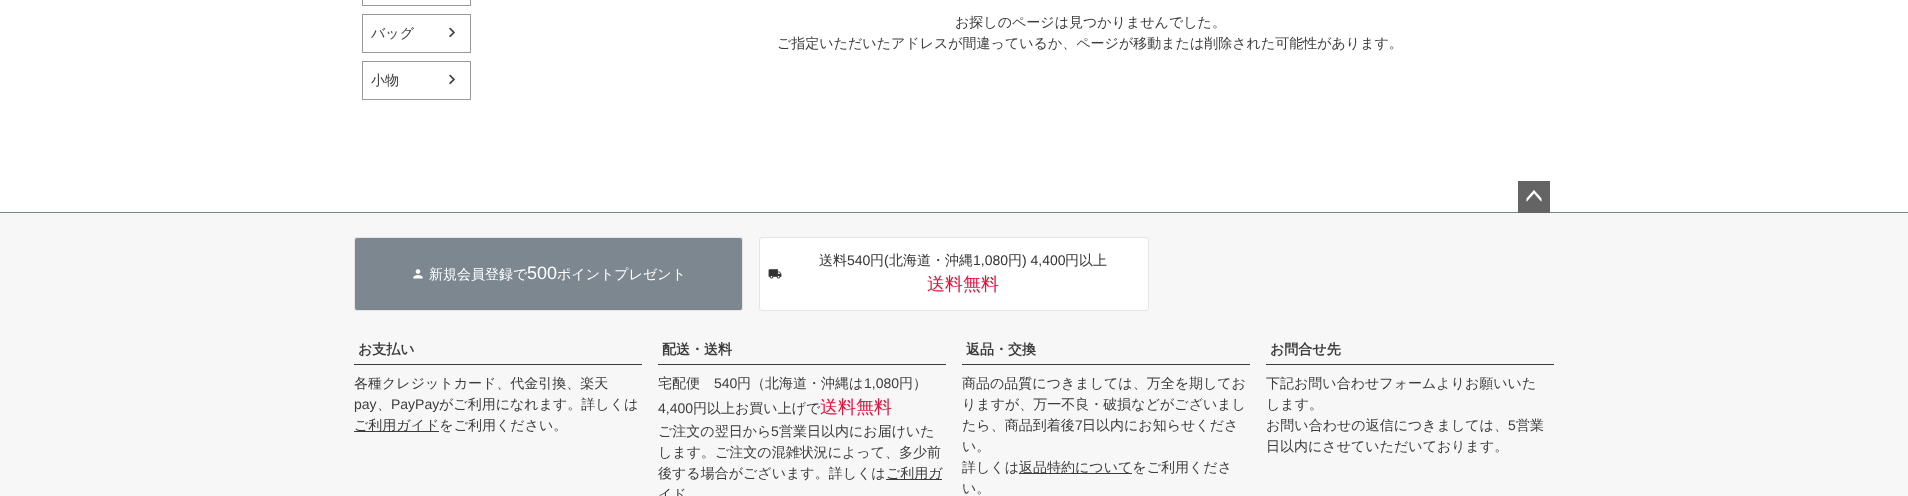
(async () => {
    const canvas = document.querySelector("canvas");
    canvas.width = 1908;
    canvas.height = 496;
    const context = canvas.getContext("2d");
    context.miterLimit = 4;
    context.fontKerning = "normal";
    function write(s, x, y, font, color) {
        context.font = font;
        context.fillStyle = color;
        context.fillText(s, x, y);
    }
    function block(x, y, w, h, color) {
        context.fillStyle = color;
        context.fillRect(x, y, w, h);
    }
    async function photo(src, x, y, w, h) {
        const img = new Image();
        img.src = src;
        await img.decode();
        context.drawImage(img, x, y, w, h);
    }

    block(0, 0, 1908, 496, "rgb(255, 255, 255)");
    context.strokeStyle = "rgb(153, 153, 153)";
    context.strokeRect(362.5, -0.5, 108, 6);
    context.strokeRect(362.5, 14.5, 108, 38);
    write("バッグ", 371, 38, "500 14px WenQuanYi Zen Hei", "rgb(60, 60, 60)");
    await photo("media/1.png", 449, 27, 6, 11);
    context.strokeRect(362.5, 61.5, 108, 38);
    write("小物", 371, 85, "500 14px WenQuanYi Zen Hei", "rgb(60, 60, 60)");
    await photo("media/1.png", 449, 74, 6, 11);
    write("お探しのページは見つかりませんでした。", 955, 27, "500 14px WenQuanYi Zen Hei", "rgb(60, 60, 60)");
    write("ご指定いただいたアドレスが間違っているか、ページが移動または削除された可能性があります。", 777, 48, "500 14px WenQuanYi Zen Hei", "rgb(60, 60, 60)");
    block(0, 213, 1908, 283, "rgb(247, 247, 247)");
    block(0, 212, 1908, 1, "rgb(124, 135, 144)");
    block(1518, 181, 32, 32, "rgb(100, 100, 100)");
    await photo("media/2.png", 1526, 190, 16, 12);
    context.fillStyle = "rgb(124, 135, 144)";
    context.beginPath();
    context.roundRect(354.5, 237.5, 388, 73, 2.5);
    context.fill();
    context.strokeStyle = "rgb(229, 229, 229)";
    context.stroke();
    await photo("media/3.png", 413, 269, 10, 10);
    write("新規会員登録で", 429, 279, "500 14px WenQuanYi Zen Hei", "rgb(255, 255, 255)");
    write("500", 527, 279, "18px Liberation Sans", "rgb(255, 255, 255)");
    write("ポイントプレゼント", 557, 279, "500 14px WenQuanYi Zen Hei", "rgb(255, 255, 255)");
    context.beginPath();
    context.roundRect(759.5, 237.5, 389, 73, 2.5);
    context.fill();
    context.stroke();
    await photo("media/4.png", 768, 269, 14, 10);
    write("送料", 819, 265, "500 14px WenQuanYi Zen Hei", "rgb(51, 51, 51)");
    write("540", 847, 265, "14px Liberation Sans", "rgb(51, 51, 51)");
    write("円", 870, 265, "500 14px WenQuanYi Zen Hei", "rgb(51, 51, 51)");
    write("(", 884, 265, "14px Liberation Sans", "rgb(51, 51, 51)");
    write("北海道・沖縄", 889, 265, "500 14px WenQuanYi Zen Hei", "rgb(51, 51, 51)");
    write("1,080", 973, 265, "14px Liberation Sans", "rgb(51, 51, 51)");
    write("円", 1008, 265, "500 14px WenQuanYi Zen Hei", "rgb(51, 51, 51)");
    write(") 4,400", 1022, 265, "14px Liberation Sans", "rgb(51, 51, 51)");
    write("円以上", 1065, 265, "500 14px WenQuanYi Zen Hei", "rgb(51, 51, 51)");
    write("送料無料", 927, 290, "500 18px WenQuanYi Zen Hei", "rgb(226, 19, 61)");
    block(354, 364, 288, 1, "rgb(60, 60, 60)");
    write("お支払い", 358, 354, "bold 14px WenQuanYi Zen Hei", "rgb(60, 60, 60)");
    write("各種クレジットカード、代金引換、楽天", 354, 388, "500 14px WenQuanYi Zen Hei", "rgb(60, 60, 60)");
    write("pay", 354, 409, "14px Liberation Sans", "rgb(60, 60, 60)");
    write("、", 377, 409, "500 14px WenQuanYi Zen Hei", "rgb(60, 60, 60)");
    write("PayPay", 391, 409, "14px Liberation Sans", "rgb(60, 60, 60)");
    write("がご利用になれます。詳しくは", 439, 409, "500 14px WenQuanYi Zen Hei", "rgb(60, 60, 60)");
    block(354, 431, 85, 1, "rgb(60, 60, 60)");
    write("ご利用ガイドをご利用ください。", 354, 430, "500 14px WenQuanYi Zen Hei", "rgb(60, 60, 60)");
    block(658, 364, 288, 1, "rgb(60, 60, 60)");
    write("配送・送料", 662, 354, "bold 14px WenQuanYi Zen Hei", "rgb(60, 60, 60)");
    write("宅配便", 658, 388, "500 14px WenQuanYi Zen Hei", "rgb(60, 60, 60)");
    write("540", 714, 388, "14px Liberation Sans", "rgb(60, 60, 60)");
    write("円（北海道・沖縄は", 737, 388, "500 14px WenQuanYi Zen Hei", "rgb(60, 60, 60)");
    write("1,080", 864, 388, "14px Liberation Sans", "rgb(60, 60, 60)");
    write("円）", 899, 388, "500 14px WenQuanYi Zen Hei", "rgb(60, 60, 60)");
    write("4,400", 658, 413, "14px Liberation Sans", "rgb(60, 60, 60)");
    write("円以上お買い上げで", 693, 413, "500 14px WenQuanYi Zen Hei", "rgb(60, 60, 60)");
    write("送料無料", 820, 413, "500 18px WenQuanYi Zen Hei", "rgb(226, 19, 61)");
    write("ご注文の翌日から", 658, 436, "500 14px WenQuanYi Zen Hei", "rgb(60, 60, 60)");
    write("5", 771, 436, "14px Liberation Sans", "rgb(60, 60, 60)");
    write("営業日以内にお届けいた", 779, 436, "500 14px WenQuanYi Zen Hei", "rgb(60, 60, 60)");
    write("します。ご注文の混雑状況によって、多少前", 658, 457, "500 14px WenQuanYi Zen Hei", "rgb(60, 60, 60)");
    write("後する場合がございます。詳しくは", 658, 478, "500 14px WenQuanYi Zen Hei", "rgb(60, 60, 60)");
    block(886, 479, 56, 1, "rgb(60, 60, 60)");
    write("ご利用ガ", 886, 478, "500 14px WenQuanYi Zen Hei", "rgb(60, 60, 60)");
    write("イド", 658, 499, "500 14px WenQuanYi Zen Hei", "rgb(60, 60, 60)");
    block(962, 364, 288, 1, "rgb(60, 60, 60)");
    write("返品・交換", 966, 354, "bold 14px WenQuanYi Zen Hei", "rgb(60, 60, 60)");
    write("商品の品質につきましては、万全を期してお", 962, 388, "500 14px WenQuanYi Zen Hei", "rgb(60, 60, 60)");
    write("りますが、万一不良・破損などがございまし", 962, 409, "500 14px WenQuanYi Zen Hei", "rgb(60, 60, 60)");
    write("たら、商品到着後", 962, 430, "500 14px WenQuanYi Zen Hei", "rgb(60, 60, 60)");
    write("7", 1075, 430, "14px Liberation Sans", "rgb(60, 60, 60)");
    write("日以内にお知らせくださ", 1082, 430, "500 14px WenQuanYi Zen Hei", "rgb(60, 60, 60)");
    write("い。", 962, 451, "500 14px WenQuanYi Zen Hei", "rgb(60, 60, 60)");
    write("詳しくは", 962, 472, "500 14px WenQuanYi Zen Hei", "rgb(60, 60, 60)");
    block(1019, 473, 113, 1, "rgb(60, 60, 60)");
    write("返品特約についてをご利用くださ", 1019, 472, "500 14px WenQuanYi Zen Hei", "rgb(60, 60, 60)");
    write("い。", 962, 493, "500 14px WenQuanYi Zen Hei", "rgb(60, 60, 60)");
    block(1266, 364, 288, 1, "rgb(60, 60, 60)");
    write("お問合せ先", 1270, 354, "bold 14px WenQuanYi Zen Hei", "rgb(60, 60, 60)");
    write("下記お問い合わせフォームよりお願いいた", 1266, 388, "500 14px WenQuanYi Zen Hei", "rgb(60, 60, 60)");
    write("します。", 1266, 409, "500 14px WenQuanYi Zen Hei", "rgb(60, 60, 60)");
    write("お問い合わせの返信につきましては、", 1266, 430, "500 14px WenQuanYi Zen Hei", "rgb(60, 60, 60)");
    write("5", 1508, 430, "14px Liberation Sans", "rgb(60, 60, 60)");
    write("営業", 1516, 430, "500 14px WenQuanYi Zen Hei", "rgb(60, 60, 60)");
    write("日以内にさせていただいております。", 1266, 451, "500 14px WenQuanYi Zen Hei", "rgb(60, 60, 60)");
})();
